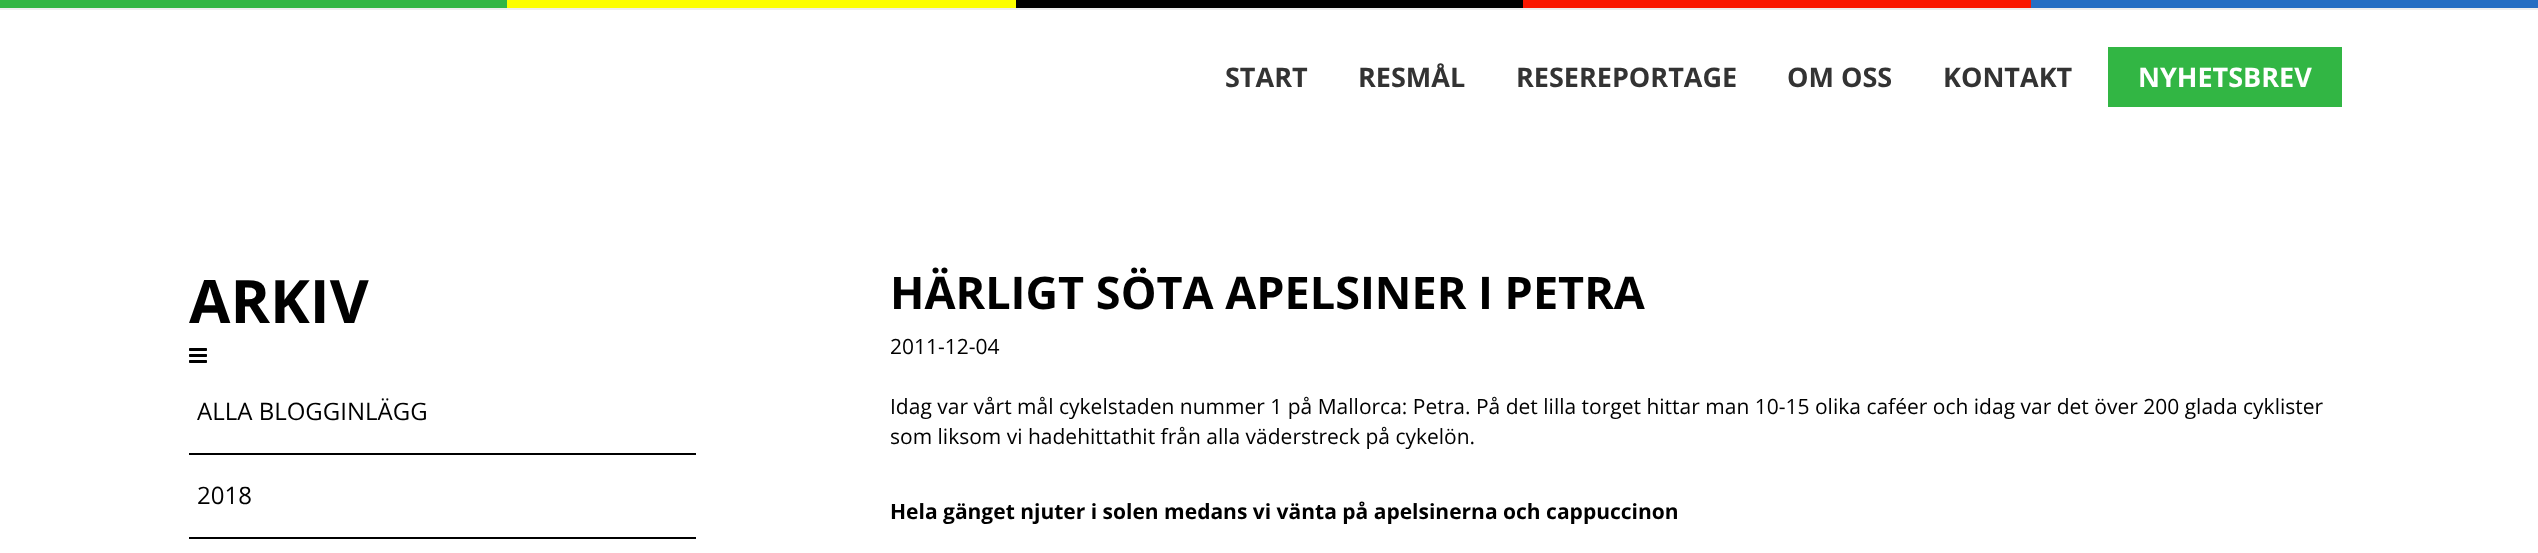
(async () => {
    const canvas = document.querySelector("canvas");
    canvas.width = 2538;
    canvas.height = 553;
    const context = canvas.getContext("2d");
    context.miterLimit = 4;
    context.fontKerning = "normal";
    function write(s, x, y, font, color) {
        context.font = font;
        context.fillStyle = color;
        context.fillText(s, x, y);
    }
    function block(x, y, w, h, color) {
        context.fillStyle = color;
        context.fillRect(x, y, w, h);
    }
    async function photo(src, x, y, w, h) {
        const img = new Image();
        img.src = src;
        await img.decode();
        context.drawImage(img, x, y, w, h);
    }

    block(0, 0, 2538, 553, "rgb(255, 255, 255)");
    block(0, 0, 507, 8, "rgb(50, 182, 68)");
    block(507, 0, 509, 8, "rgb(252, 254, 0)");
    block(1016, 0, 507, 8, "rgb(0, 0, 0)");
    block(1523, 0, 508, 8, "rgb(250, 23, 0)");
    block(2031, 0, 507, 8, "rgb(37, 110, 195)");
    block(0, 8, 2538, 2, "rgb(238, 238, 238)");
    write("START", 1225, 87, "bold 27px Open Sans", "rgb(51, 51, 51)");
    write("RESMÅL", 1358, 87, "bold 27px Open Sans", "rgb(51, 51, 51)");
    write("RESEREPORTAGE", 1516, 87, "bold 27px Open Sans", "rgb(51, 51, 51)");
    write("OM OSS", 1787, 87, "bold 27px Open Sans", "rgb(51, 51, 51)");
    write("KONTAKT", 1943, 87, "bold 27px Open Sans", "rgb(51, 51, 51)");
    block(2108, 47, 234, 60, "rgb(50, 182, 68)");
    write("NYHETSBREV", 2138, 87, "bold 27px Open Sans", "rgb(255, 255, 255)");
    write("ARKIV", 189, 323, "bold 60px Open Sans", "rgb(0, 0, 0)");
    await photo("media/1.png", 189, 348, 18, 15);
    block(189, 453, 507, 2, "rgb(0, 0, 0)");
    write("ALLA BLOGGINLÄGG", 197, 420, "24px Open Sans", "rgb(0, 0, 0)");
    block(189, 537, 507, 2, "rgb(0, 0, 0)");
    write("2018", 197, 504, "24px Open Sans", "rgb(0, 0, 0)");
    write("HÄRLIGT SÖTA APELSINER I PETRA", 890, 309, "bold 45px Open Sans", "rgb(0, 0, 0)");
    write("2011-12-04", 890, 354, "21px Open Sans", "rgb(0, 0, 0)");
    write("Idag var vårt mål cykelstaden nummer 1 på Mallorca: Petra. På det lilla torget hittar man 10-15 olika caféer och idag var det över 200 glada cyklister", 890, 414, "21px Open Sans", "rgb(0, 0, 0)");
    write("som liksom vi hadehittathit från alla väderstreck på cykelön.", 890, 444, "21px Open Sans", "rgb(0, 0, 0)");
    write("Hela gänget njuter i solen medans vi vänta på apelsinerna och cappuccinon", 890, 519, "bold 21px Open Sans", "rgb(0, 0, 0)");
})();
